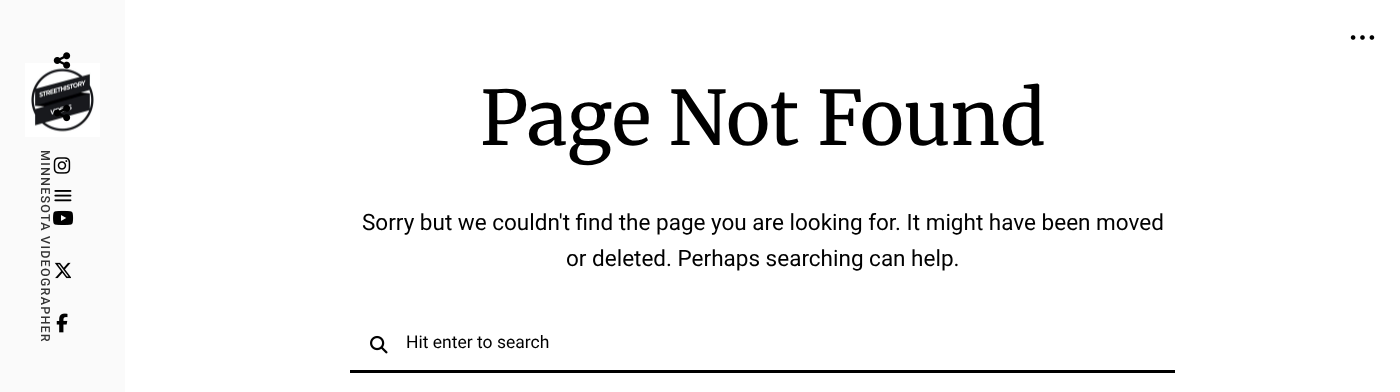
(async () => {
    const canvas = document.querySelector("canvas");
    canvas.width = 1400;
    canvas.height = 392;
    const context = canvas.getContext("2d");
    context.miterLimit = 4;
    context.fontKerning = "normal";
    function write(s, x, y, font, color) {
        context.font = font;
        context.fillStyle = color;
        context.fillText(s, x, y);
    }
    function block(x, y, w, h, color) {
        context.fillStyle = color;
        context.fillRect(x, y, w, h);
    }
    async function photo(src, x, y, w, h) {
        const img = new Image();
        img.src = src;
        await img.decode();
        context.drawImage(img, x, y, w, h);
    }

    block(0, 0, 1400, 392, "rgb(255, 255, 255)");
    await photo("media/1.png", 1350, 35, 25, 5);
    block(0, 0, 125, 392, "rgb(250, 250, 250)");
    await photo("media/2.png", 25, 63, 75, 74);
    context.letterSpacing = "1.25px";
    context.font = "500 12.5px Roboto";
    context.fillStyle = "rgb(50, 50, 50)";
    context.save();
    context.translate(41, 150);
    context.rotate(90 * Math.PI / 180);
    context.fillText("MINNESOTA VIDEOGRAPHER", 0, 0);
    context.restore();
    await photo("media/3.png", 53, 52, 18, 17);
    await photo("media/4.png", 53, 104, 18, 18);
    await photo("media/5.png", 53, 157, 18, 17);
    await photo("media/6.png", 53, 210, 21, 15);
    await photo("media/7.png", 54, 262, 17, 17);
    await photo("media/8.png", 56, 313, 12, 20);
    await photo("media/9.png", 54, 190, 18, 12);
    context.letterSpacing = "0px";
    write("Page Not Found", 480, 145, "75px Merriweather", "rgb(0, 0, 0)");
    write("Sorry but we couldn't find the page you are looking for. It might have been moved", 362, 230, "22.5px Roboto", "rgb(0, 0, 0)");
    write("or deleted. Perhaps searching can help.", 566, 266, "22.5px Roboto", "rgb(0, 0, 0)");
    await photo("media/10.png", 370, 335, 18, 19);
    block(350, 370, 825, 3, "rgb(0, 0, 0)");
    write("Hit enter to search", 406, 348, "17.5px Roboto", "rgb(0, 0, 0)");
})();
